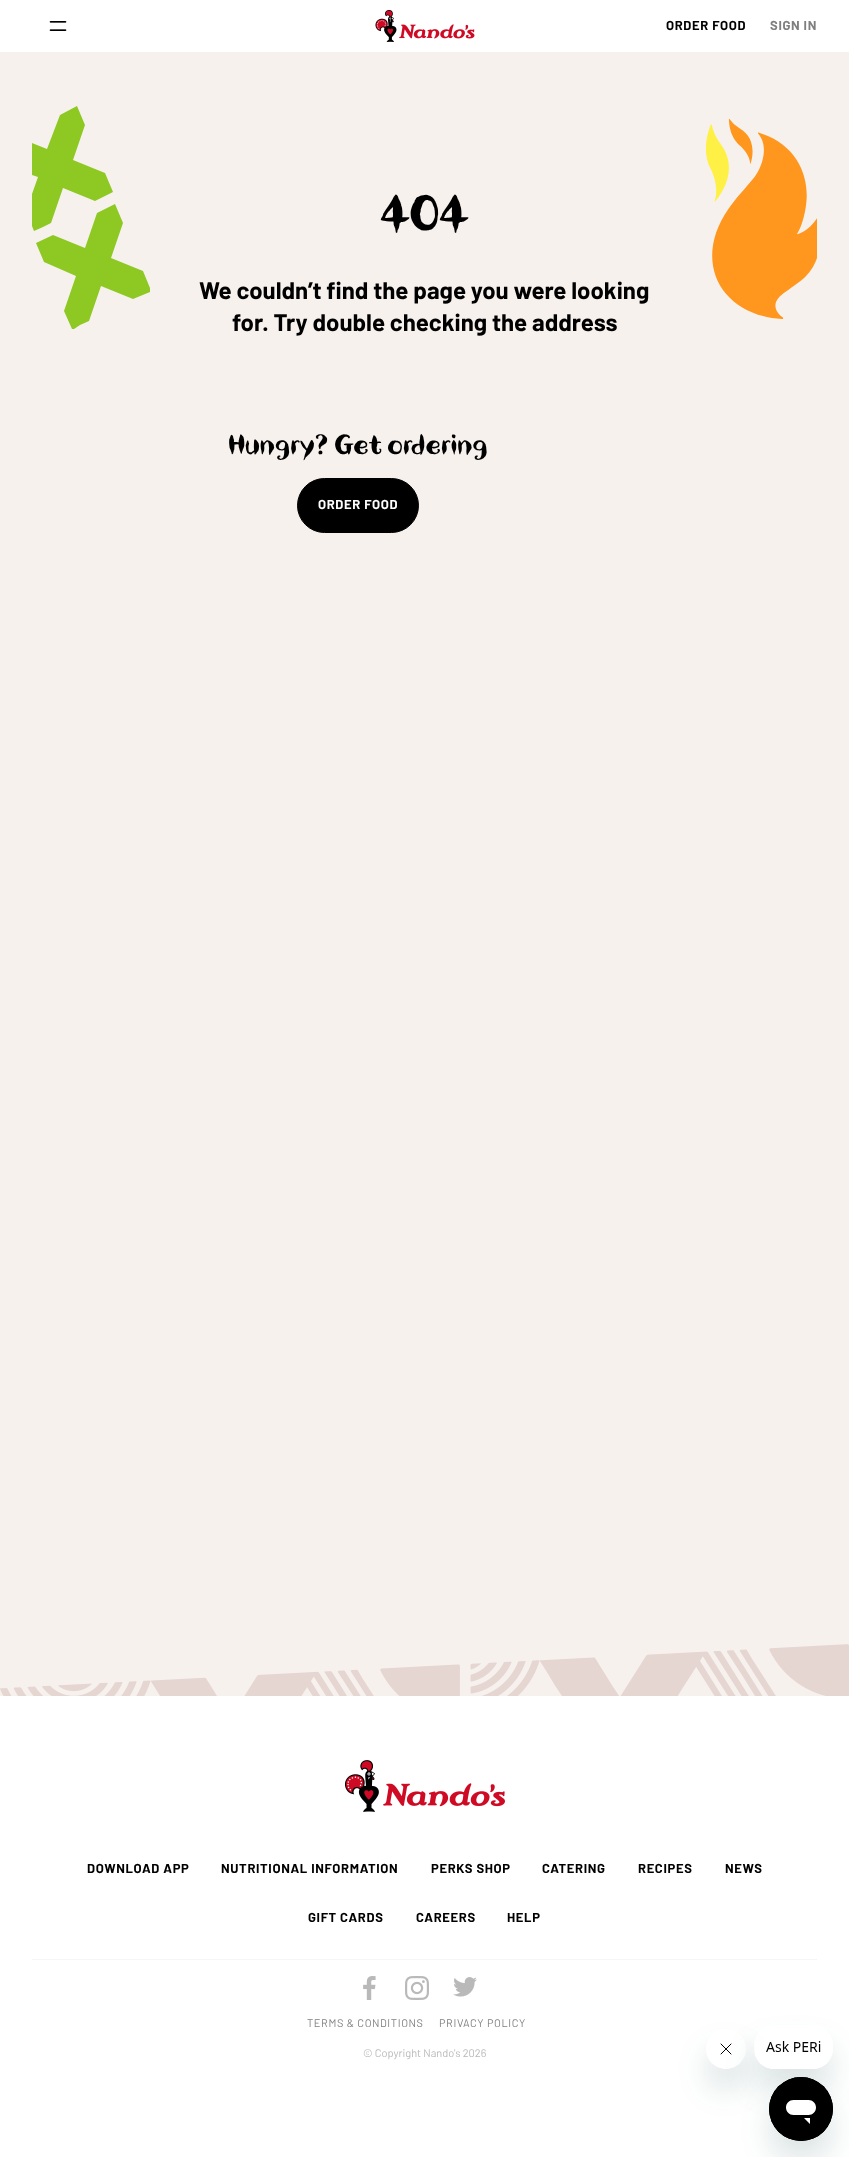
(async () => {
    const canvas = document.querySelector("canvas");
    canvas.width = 849;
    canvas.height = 2157;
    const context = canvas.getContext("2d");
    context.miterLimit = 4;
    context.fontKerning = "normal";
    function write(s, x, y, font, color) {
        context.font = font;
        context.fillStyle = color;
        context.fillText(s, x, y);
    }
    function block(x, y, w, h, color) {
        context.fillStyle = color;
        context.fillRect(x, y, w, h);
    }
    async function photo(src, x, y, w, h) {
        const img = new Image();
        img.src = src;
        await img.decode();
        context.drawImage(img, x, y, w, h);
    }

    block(0, 0, 849, 2157, "rgb(247, 241, 238)");
    block(0, 0, 849, 52, "rgb(255, 255, 255)");
    await photo("media/1.png", 49, 21, 18, 10);
    await photo("media/2.png", 375, 10, 100, 32);
    context.letterSpacing = "0.65px";
    write("ORDER FOOD", 666, 30, "bold 13px Barlow", "rgb(0, 0, 0)");
    write("SIGN IN", 770, 30, "bold 13px Barlow", "rgb(127, 127, 127)");
    context.fillStyle = "rgb(141, 201, 34)";
    context.beginPath();
    context.moveTo(43, 227);
    context.lineTo(34, 231);
    context.lineTo(32, 226);
    context.lineTo(32, 194);
    context.lineTo(38, 177);
    context.lineTo(32, 175);
    context.lineTo(32, 143);
    context.lineTo(47, 149);
    context.lineTo(60, 115);
    context.lineTo(77, 106);
    context.lineTo(85, 125);
    context.lineTo(73, 160);
    context.lineTo(105, 173);
    context.lineTo(113, 192);
    context.lineTo(95, 201);
    context.lineTo(63, 188);
    context.lineTo(51, 223);
    context.closePath();
    context.moveTo(80, 325);
    context.lineTo(74, 329);
    context.lineTo(72, 329);
    context.lineTo(64, 311);
    context.lineTo(76, 276);
    context.lineTo(44, 262);
    context.lineTo(36, 243);
    context.lineTo(53, 235);
    context.lineTo(85, 248);
    context.lineTo(97, 213);
    context.lineTo(115, 204);
    context.lineTo(123, 223);
    context.lineTo(111, 258);
    context.lineTo(143, 271);
    context.lineTo(150, 288);
    context.lineTo(150, 292);
    context.lineTo(133, 299);
    context.lineTo(101, 286);
    context.lineTo(89, 321);
    context.closePath();
    context.fill("evenodd");
    context.letterSpacing = "0px";
    write("404", 380, 230, "50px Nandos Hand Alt", "rgb(0, 0, 0)");
    write("We couldn’t find the page you were looking", 199, 299, "bold 24px Barlow", "rgb(0, 0, 0)");
    write("for. Try double checking the address", 232, 331, "bold 24px Barlow", "rgb(0, 0, 0)");
    await photo("media/3.png", 705, 118, 112, 201);
    write("Hungry? Get ordering", 228, 454, "28px Nandos Hand Alt", "rgb(0, 0, 0)");
    context.beginPath();
    context.roundRect(297.5, 478.5, 121, 54, 27);
    context.fill();
    context.strokeStyle = "rgb(0, 0, 0)";
    context.stroke();
    context.letterSpacing = "0.65px";
    write("ORDER FOOD", 318, 509, "bold 13px Barlow", "rgb(255, 255, 255)");
    await photo("media/4.png", 0, 1644, 849, 52);
    block(0, 1696, 849, 461, "rgb(255, 255, 255)");
    await photo("media/5.png", 345, 1760, 160, 52);
    write("DOWNLOAD APP", 87, 1873, "bold 13px Barlow", "rgb(0, 0, 0)");
    write("NUTRITIONAL INFORMATION", 221, 1873, "bold 13px Barlow", "rgb(0, 0, 0)");
    write("PERKS SHOP", 431, 1873, "bold 13px Barlow", "rgb(0, 0, 0)");
    write("CATERING", 542, 1873, "bold 13px Barlow", "rgb(0, 0, 0)");
    write("RECIPES", 638, 1873, "bold 13px Barlow", "rgb(0, 0, 0)");
    write("NEWS", 725, 1873, "bold 13px Barlow", "rgb(0, 0, 0)");
    write("GIFT CARDS", 308, 1922, "bold 13px Barlow", "rgb(0, 0, 0)");
    write("CAREERS", 416, 1922, "bold 13px Barlow", "rgb(0, 0, 0)");
    write("HELP", 507, 1922, "bold 13px Barlow", "rgb(0, 0, 0)");
    block(32, 1959, 785, 1, "rgb(246, 246, 246)");
    await photo("media/6.png", 363, 1976, 13, 24);
    await photo("media/7.png", 405, 1976, 24, 24);
    await photo("media/8.png", 453, 1977, 24, 20);
    context.letterSpacing = "0.6px";
    write("TERMS & CONDITIONS", 307, 2027, "11px Barlow", "rgb(127, 127, 127)");
    write("PRIVACY POLICY", 439, 2027, "11px Barlow", "rgb(127, 127, 127)");
    context.letterSpacing = "0px";
    write("© Copyright Nando's 2026", 363, 2057, "11px Barlow", "rgb(185, 185, 185)");
    context.save();
    context.beginPath();
    context.moveTo(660, 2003);
    context.lineTo(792, 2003);
    context.lineTo(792, 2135);
    context.lineTo(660, 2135);
    context.closePath();
    context.moveTo(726, 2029);
    context.bezierCurveTo(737, 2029, 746, 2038, 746, 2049);
    context.bezierCurveTo(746, 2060, 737, 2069, 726, 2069);
    context.bezierCurveTo(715, 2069, 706, 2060, 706, 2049);
    context.bezierCurveTo(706, 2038, 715, 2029, 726, 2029);
    context.closePath();
    context.clip("evenodd");
    context.fillStyle = "rgba(23, 73, 77, 0.15)";
    context.filter = "blur(15px)";
    context.beginPath();
    context.roundRect(706, 2049, 40, 40, 20);
    context.fill();
    context.filter = "none";
    context.restore();
    await photo("media/10.png", 720, 2043, 12, 12);
    context.save();
    context.beginPath();
    context.moveTo(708, 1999);
    context.lineTo(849, 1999);
    context.lineTo(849, 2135);
    context.lineTo(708, 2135);
    context.closePath();
    context.moveTo(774, 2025);
    context.lineTo(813, 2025);
    context.bezierCurveTo(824, 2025, 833, 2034, 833, 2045);
    context.lineTo(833, 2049);
    context.bezierCurveTo(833, 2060, 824, 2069, 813, 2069);
    context.lineTo(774, 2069);
    context.bezierCurveTo(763, 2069, 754, 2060, 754, 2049);
    context.lineTo(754, 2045);
    context.bezierCurveTo(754, 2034, 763, 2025, 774, 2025);
    context.closePath();
    context.clip("evenodd");
    context.fillStyle = "rgba(23, 73, 77, 0.15)";
    context.filter = "blur(15px)";
    context.beginPath();
    context.roundRect(754, 2045, 79, 44, 20);
    context.fill();
    context.filter = "none";
    context.restore();
    await photo("media/9.png", 755, 2041, 72, 28);
    context.fillStyle = "rgba(23, 73, 77, 0.15)";
    context.filter = "blur(15px)";
    context.beginPath();
    context.roundRect(769, 2097, 64, 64, 32);
    context.fill();
    context.filter = "none";
    await photo("media/11.png", 769, 2077, 64, 64);
})();
